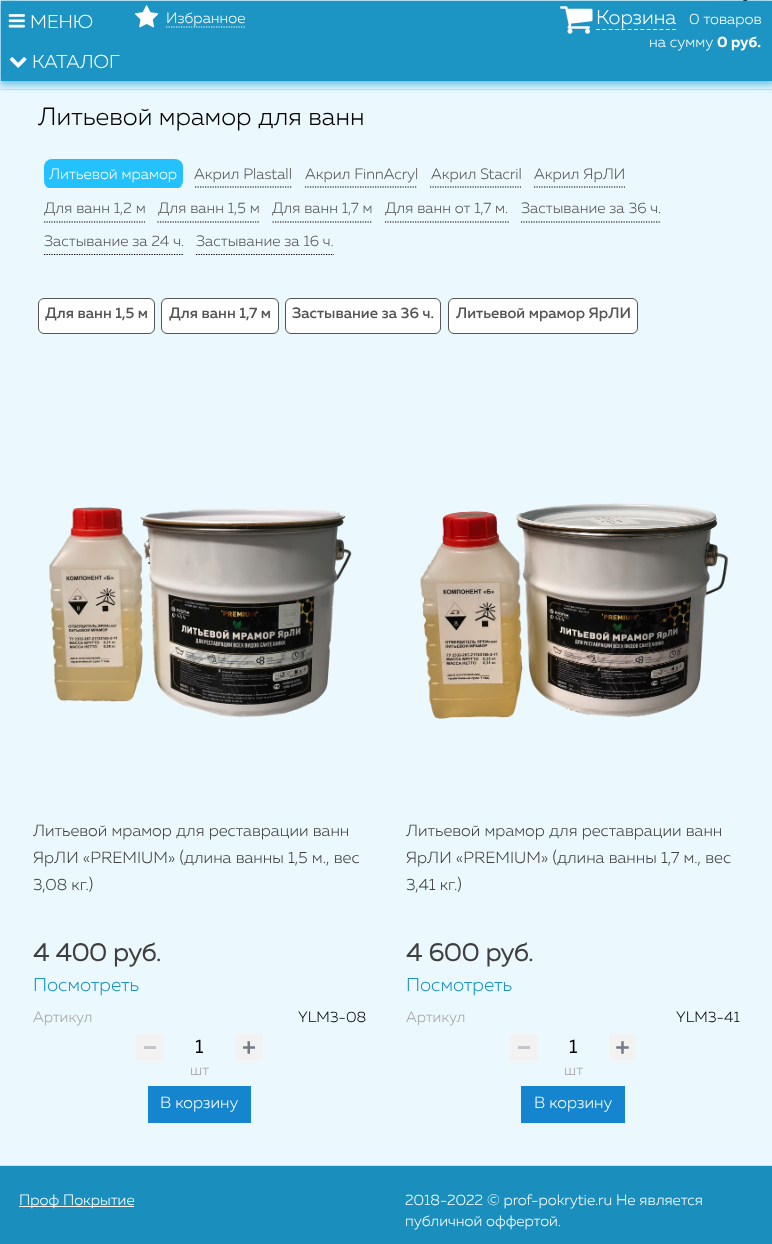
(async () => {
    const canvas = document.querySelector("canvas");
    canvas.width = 772;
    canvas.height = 1244;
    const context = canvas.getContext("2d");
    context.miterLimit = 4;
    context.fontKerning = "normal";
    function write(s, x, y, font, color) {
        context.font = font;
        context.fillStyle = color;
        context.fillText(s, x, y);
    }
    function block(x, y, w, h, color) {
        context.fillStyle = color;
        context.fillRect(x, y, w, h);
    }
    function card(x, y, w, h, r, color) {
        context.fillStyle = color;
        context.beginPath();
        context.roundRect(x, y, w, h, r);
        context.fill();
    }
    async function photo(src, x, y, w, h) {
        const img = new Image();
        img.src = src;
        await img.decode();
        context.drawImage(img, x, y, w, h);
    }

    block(0, 0, 772, 1244, "rgb(235, 249, 255)");
    block(19, 0, 699, 1, "rgb(255, 255, 255)");
    await photo("media/1.png", 743, 0, 5, 1);
    block(0, 89, 772, 1, "rgb(221, 221, 221)");
    context.fillStyle = "rgba(38, 163, 214, 0.68)";
    context.filter = "blur(4px)";
    context.beginPath();
    context.rect(-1, 0, 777, 85);
    context.fill();
    context.filter = "none";
    block(1, 1, 771, 80, "rgb(28, 148, 196)");
    await photo("media/2.png", 8, 14, 17, 14);
    write("МЕНЮ", 30, 28, "300 18.75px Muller", "rgb(255, 255, 255)");
    await photo("media/3.png", 9, 57, 18, 11);
    write("КАТАЛОГ", 32, 68, "300 18.75px Muller", "rgb(255, 255, 255)");
    await photo("media/4.png", 135, 5, 24, 23);
    context.beginPath();
    context.moveTo(166, 27);
    context.lineTo(245, 27);
    context.strokeStyle = "rgb(255, 255, 255)";
    context.lineWidth = 1.2;
    context.setLineDash([1.25, 1.25]);
    context.stroke();
    write("Избранное", 166, 23, "300 15px Muller", "rgb(255, 255, 255)");
    await photo("media/5.png", 560, 6, 33, 28);
    context.beginPath();
    context.moveTo(596, 29.5);
    context.lineTo(676, 29.5);
    context.setLineDash([3.75, 2.6]);
    context.stroke();
    write("Корзина", 596, 24, "300 20px Muller", "rgb(255, 255, 255)");
    write("0 товаров", 689, 24, "300 15px Muller", "rgb(255, 255, 255)");
    write("на сумму", 649, 47, "300 15px Muller", "rgb(255, 255, 255)");
    write("0 руб.", 717, 47, "bold 15px 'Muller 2'", "rgb(255, 255, 255)");
    block(0, 1165, 772, 1, "rgb(221, 221, 221)");
    write("Литьевой мрамор для ванн", 38, 125, "300 25px Muller", "rgb(0, 0, 0)");
    card(44, 159, 139, 30, 8, "rgb(36, 193, 255)");
    block(48, 188, 131, 1, "rgb(255, 255, 255)");
    write("Литьевой мрамор", 49, 179, "300 15px Muller", "rgb(255, 255, 255)");
    context.beginPath();
    context.moveTo(195, 187);
    context.lineTo(292.5, 187);
    context.strokeStyle = "rgb(0, 0, 0)";
    context.setLineDash([1.25, 1.25]);
    context.stroke();
    write("Акрил Plastall", 194, 179, "300 15px Muller", "rgb(84, 84, 84)");
    context.beginPath();
    context.moveTo(305, 187);
    context.lineTo(417.5, 187);
    context.stroke();
    write("Акрил FinnAcryl", 305, 179, "300 15px Muller", "rgb(84, 84, 84)");
    context.beginPath();
    context.moveTo(430, 187);
    context.lineTo(521, 187);
    context.stroke();
    write("Акрил Stacril", 431, 179, "300 15px Muller", "rgb(84, 84, 84)");
    context.beginPath();
    context.moveTo(534, 187);
    context.lineTo(625, 187);
    context.stroke();
    write("Акрил ЯрЛИ", 534, 179, "300 15px Muller", "rgb(84, 84, 84)");
    context.beginPath();
    context.moveTo(44, 222);
    context.lineTo(145, 222);
    context.stroke();
    write("Для ванн 1,2 м", 44, 213, "300 15px Muller", "rgb(84, 84, 84)");
    context.beginPath();
    context.moveTo(157.5, 222);
    context.lineTo(260, 222);
    context.stroke();
    write("Для ванн 1,5 м", 158, 213, "300 15px Muller", "rgb(84, 84, 84)");
    context.beginPath();
    context.moveTo(272.5, 222);
    context.lineTo(372.5, 222);
    context.stroke();
    write("Для ванн 1,7 м", 272, 213, "300 15px Muller", "rgb(84, 84, 84)");
    context.beginPath();
    context.moveTo(385, 222);
    context.lineTo(509, 222);
    context.stroke();
    write("Для ванн от 1,7 м.", 385, 213, "300 15px Muller", "rgb(84, 84, 84)");
    context.beginPath();
    context.moveTo(521, 222);
    context.lineTo(661, 222);
    context.stroke();
    write("Застывание за 36 ч.", 521, 213, "300 15px Muller", "rgb(84, 84, 84)");
    context.beginPath();
    context.moveTo(44, 254.5);
    context.lineTo(184, 254.5);
    context.stroke();
    write("Застывание за 24 ч.", 44, 246, "300 15px Muller", "rgb(84, 84, 84)");
    context.beginPath();
    context.moveTo(196, 254.5);
    context.lineTo(334, 254.5);
    context.stroke();
    write("Застывание за 16 ч.", 196, 246, "300 15px Muller", "rgb(84, 84, 84)");
    context.fillStyle = "rgb(255, 255, 255)";
    context.beginPath();
    context.roundRect(38.5, 298.5, 116, 35, 5.5);
    context.fill();
    context.strokeStyle = "rgb(84, 84, 84)";
    context.lineWidth = 1;
    context.setLineDash([]);
    context.stroke();
    write("Для ванн 1,5 м", 45, 318, "500 15px Muller", "rgb(84, 84, 84)");
    context.fillStyle = "rgb(255, 255, 255)";
    context.beginPath();
    context.roundRect(161.5, 298.5, 117, 35, 5.5);
    context.fill();
    context.stroke();
    write("Для ванн 1,7 м", 169, 318, "500 15px Muller", "rgb(84, 84, 84)");
    context.fillStyle = "rgb(255, 255, 255)";
    context.beginPath();
    context.roundRect(285.5, 298.5, 155, 35, 5.5);
    context.fill();
    context.stroke();
    write("Застывание за 36 ч.", 292, 318, "500 15px Muller", "rgb(84, 84, 84)");
    context.fillStyle = "rgb(255, 255, 255)";
    context.beginPath();
    context.roundRect(448.5, 298.5, 189, 35, 5.5);
    context.fill();
    context.stroke();
    write("Литьевой мрамор ЯрЛИ", 456, 318, "500 15px Muller", "rgb(84, 84, 84)");
    await photo("media/6.png", 49, 507, 303, 211);
    write("Литьевой мрамор для реставрации ванн", 33, 836, "300 16.25px Muller", "rgb(63, 63, 63)");
    write("ЯрЛИ «PREMIUM» (длина ванны 1,5 м., вес", 33, 863, "300 16.25px Muller", "rgb(63, 63, 63)");
    write("3,08 кг.)", 33, 890, "300 16.25px Muller", "rgb(63, 63, 63)");
    write("4 400 руб.", 33, 961, "bold 25px Muller", "rgb(63, 63, 63)");
    write("Посмотреть", 33, 991, "300 18.75px Muller", "rgb(28, 148, 196)");
    write("Артикул", 33, 1022, "300 15px Muller", "rgb(165, 165, 165)");
    write("YLM3-08", 298, 1022, "300 15px Muller", "rgb(0, 0, 0)");
    card(136, 1034, 28, 27, 2.5, "rgb(242, 242, 242)");
    block(144, 1046, 12, 3, "rgb(194, 197, 201)");
    write("1", 195, 1053, "bold 18.75px Muller", "rgb(0, 0, 0)");
    card(235, 1034, 28, 27, 2.5, "rgb(242, 242, 242)");
    await photo("media/7.png", 243, 1041, 12, 13);
    write("шт", 190, 1075, "300 15px Muller", "rgb(165, 165, 165)");
    block(148, 1086, 103, 37, "rgb(20, 133, 206)");
    write("В корзину", 160, 1108, "300 16.25px Muller", "rgb(255, 255, 255)");
    await photo("media/8.png", 420, 503, 309, 216);
    write("Литьевой мрамор для реставрации ванн", 406, 836, "300 16.25px Muller", "rgb(63, 63, 63)");
    write("ЯрЛИ «PREMIUM» (длина ванны 1,7 м., вес", 406, 863, "300 16.25px Muller", "rgb(63, 63, 63)");
    write("3,41 кг.)", 406, 890, "300 16.25px Muller", "rgb(63, 63, 63)");
    write("4 600 руб.", 406, 961, "bold 25px Muller", "rgb(63, 63, 63)");
    write("Посмотреть", 406, 991, "300 18.75px Muller", "rgb(28, 148, 196)");
    write("Артикул", 406, 1022, "300 15px Muller", "rgb(165, 165, 165)");
    write("YLM3-41", 676, 1022, "300 15px Muller", "rgb(0, 0, 0)");
    card(510, 1034, 28, 27, 2.5, "rgb(242, 242, 242)");
    block(518, 1046, 12, 3, "rgb(194, 197, 201)");
    write("1", 569, 1053, "bold 18.75px Muller", "rgb(0, 0, 0)");
    card(609, 1034, 27, 27, 2.5, "rgb(242, 242, 242)");
    await photo("media/9.png", 616, 1041, 13, 13);
    write("шт", 564, 1075, "300 15px Muller", "rgb(165, 165, 165)");
    block(521, 1086, 104, 37, "rgb(20, 133, 206)");
    write("В корзину", 534, 1108, "300 16.25px Muller", "rgb(255, 255, 255)");
    block(0, 1166, 772, 78, "rgb(26, 143, 190)");
    block(19, 1206, 115, 1, "rgb(255, 255, 255)");
    write("Проф Покрытие", 19, 1205, "300 15px Muller", "rgb(255, 255, 255)");
    write("2018-2022 © prof-pokrytie.ru Не является", 405, 1205, "300 15px Muller", "rgb(255, 255, 255)");
    write("публичной оффертой.", 405, 1226, "300 15px Muller", "rgb(255, 255, 255)");
})();
